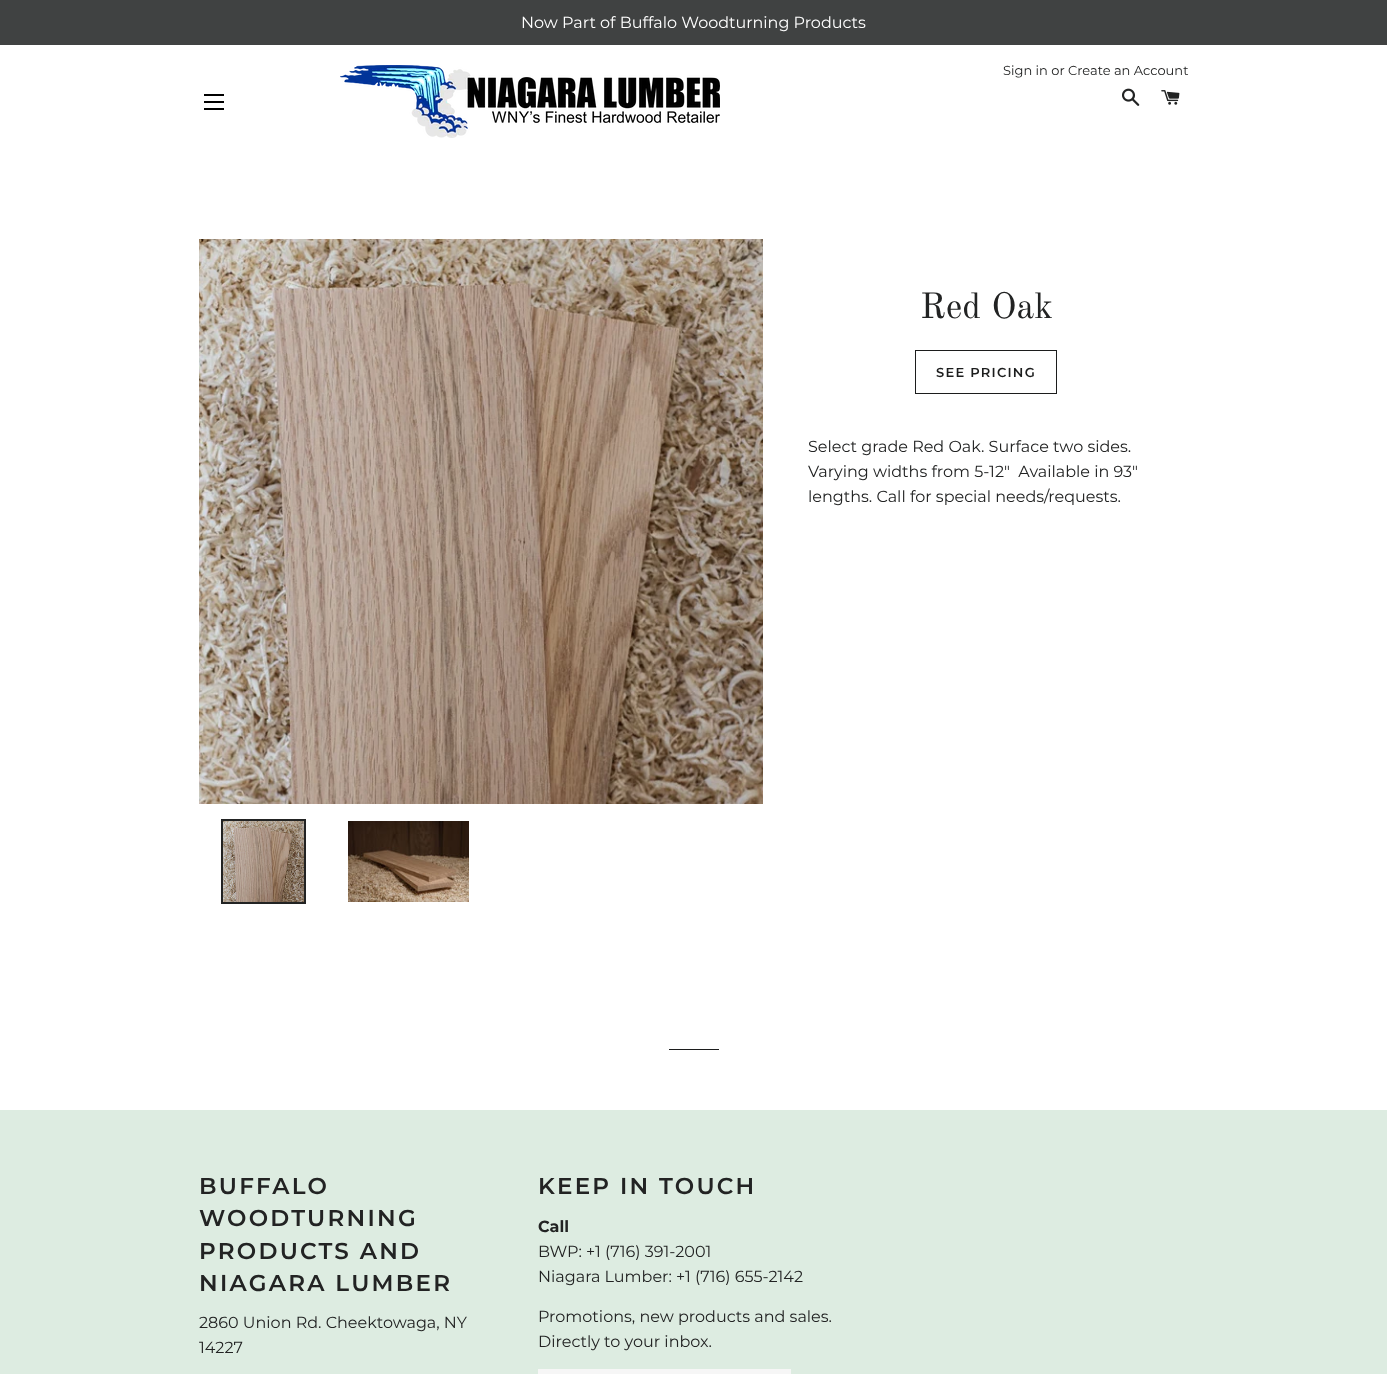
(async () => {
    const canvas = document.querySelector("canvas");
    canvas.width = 1387;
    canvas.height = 1374;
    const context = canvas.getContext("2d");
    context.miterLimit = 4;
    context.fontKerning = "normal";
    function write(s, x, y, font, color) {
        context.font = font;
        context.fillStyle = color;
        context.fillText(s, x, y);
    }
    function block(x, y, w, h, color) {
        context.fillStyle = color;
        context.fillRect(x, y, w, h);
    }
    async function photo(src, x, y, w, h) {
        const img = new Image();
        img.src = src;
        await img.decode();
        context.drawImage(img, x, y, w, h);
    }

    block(0, 0, 1387, 1374, "rgb(255, 255, 255)");
    block(0, 0, 1387, 45, "rgb(64, 66, 66)");
    write("Now Part of Buffalo Woodturning Products", 521, 28, "16px Montserrat", "rgb(255, 255, 255)");
    await photo("media/1.png", 340, 65, 380, 73);
    write("Sign in or Create an Account", 1003, 75, "13px Montserrat", "rgb(34, 35, 35)");
    await photo("media/2.png", 1122, 88, 18, 18);
    await photo("media/3.png", 1161, 90, 19, 15);
    block(204, 94, 20, 2, "rgb(0, 0, 0)");
    block(204, 101, 20, 2, "rgb(0, 0, 0)");
    block(204, 108, 20, 2, "rgb(0, 0, 0)");
    await photo("media/4.png", 199, 239, 564, 565);
    context.strokeStyle = "rgb(34, 35, 35)";
    context.lineWidth = 2;
    context.strokeRect(222, 820, 83, 83);
    await photo("media/5.png", 223, 821, 81, 81);
    await photo("media/6.png", 348, 821, 121, 81);
    write("Red Oak", 920, 318, "36px Old Standard TT", "rgb(34, 35, 35)");
    context.strokeStyle = "rgb(28, 29, 29)";
    context.lineWidth = 1;
    context.strokeRect(915.5, 350.5, 141, 43);
    context.letterSpacing = "1.25px";
    write("SEE PRICING", 936, 377, "600 13px Montserrat", "rgb(28, 29, 29)");
    context.letterSpacing = "0px";
    write("Select grade Red Oak. Surface two sides.", 808, 452, "16px Montserrat", "rgb(34, 35, 35)");
    write("Varying widths from 5-12\"  Available in 93\"", 808, 477, "16px Montserrat", "rgb(34, 35, 35)");
    write("lengths. Call for special needs/requests.", 808, 502, "16px Montserrat", "rgb(34, 35, 35)");
    block(669, 1049, 50, 1, "rgb(28, 29, 29)");
    block(0, 1110, 1387, 264, "rgb(221, 236, 225)");
    context.letterSpacing = "2.25px";
    write("BUFFALO", 199, 1194, "600 23px Montserrat", "rgb(34, 35, 35)");
    write("WOODTURNING", 199, 1226, "600 23px Montserrat", "rgb(34, 35, 35)");
    write("PRODUCTS AND", 199, 1259, "600 23px Montserrat", "rgb(34, 35, 35)");
    write("NIAGARA LUMBER", 199, 1291, "600 23px Montserrat", "rgb(34, 35, 35)");
    context.letterSpacing = "0px";
    write("2860 Union Rd. Cheektowaga, NY", 199, 1328, "16px Montserrat", "rgb(34, 35, 35)");
    write("14227", 199, 1353, "16px Montserrat", "rgb(34, 35, 35)");
    context.letterSpacing = "2.25px";
    write("KEEP IN TOUCH", 538, 1194, "600 23px Montserrat", "rgb(34, 35, 35)");
    context.letterSpacing = "0px";
    write("Call", 538, 1232, "bold 16px Montserrat", "rgb(34, 35, 35)");
    write("BWP: +1 (716) 391-2001", 538, 1257, "16px Montserrat", "rgb(34, 35, 35)");
    write("Niagara Lumber: +1 (716) 655-2142", 538, 1282, "16px Montserrat", "rgb(34, 35, 35)");
    write("Promotions, new products and sales.", 538, 1322, "16px Montserrat", "rgb(34, 35, 35)");
    write("Directly to your inbox.", 538, 1347, "16px Montserrat", "rgb(34, 35, 35)");
    block(538, 1369, 253, 5, "rgb(246, 246, 246)");
})();
